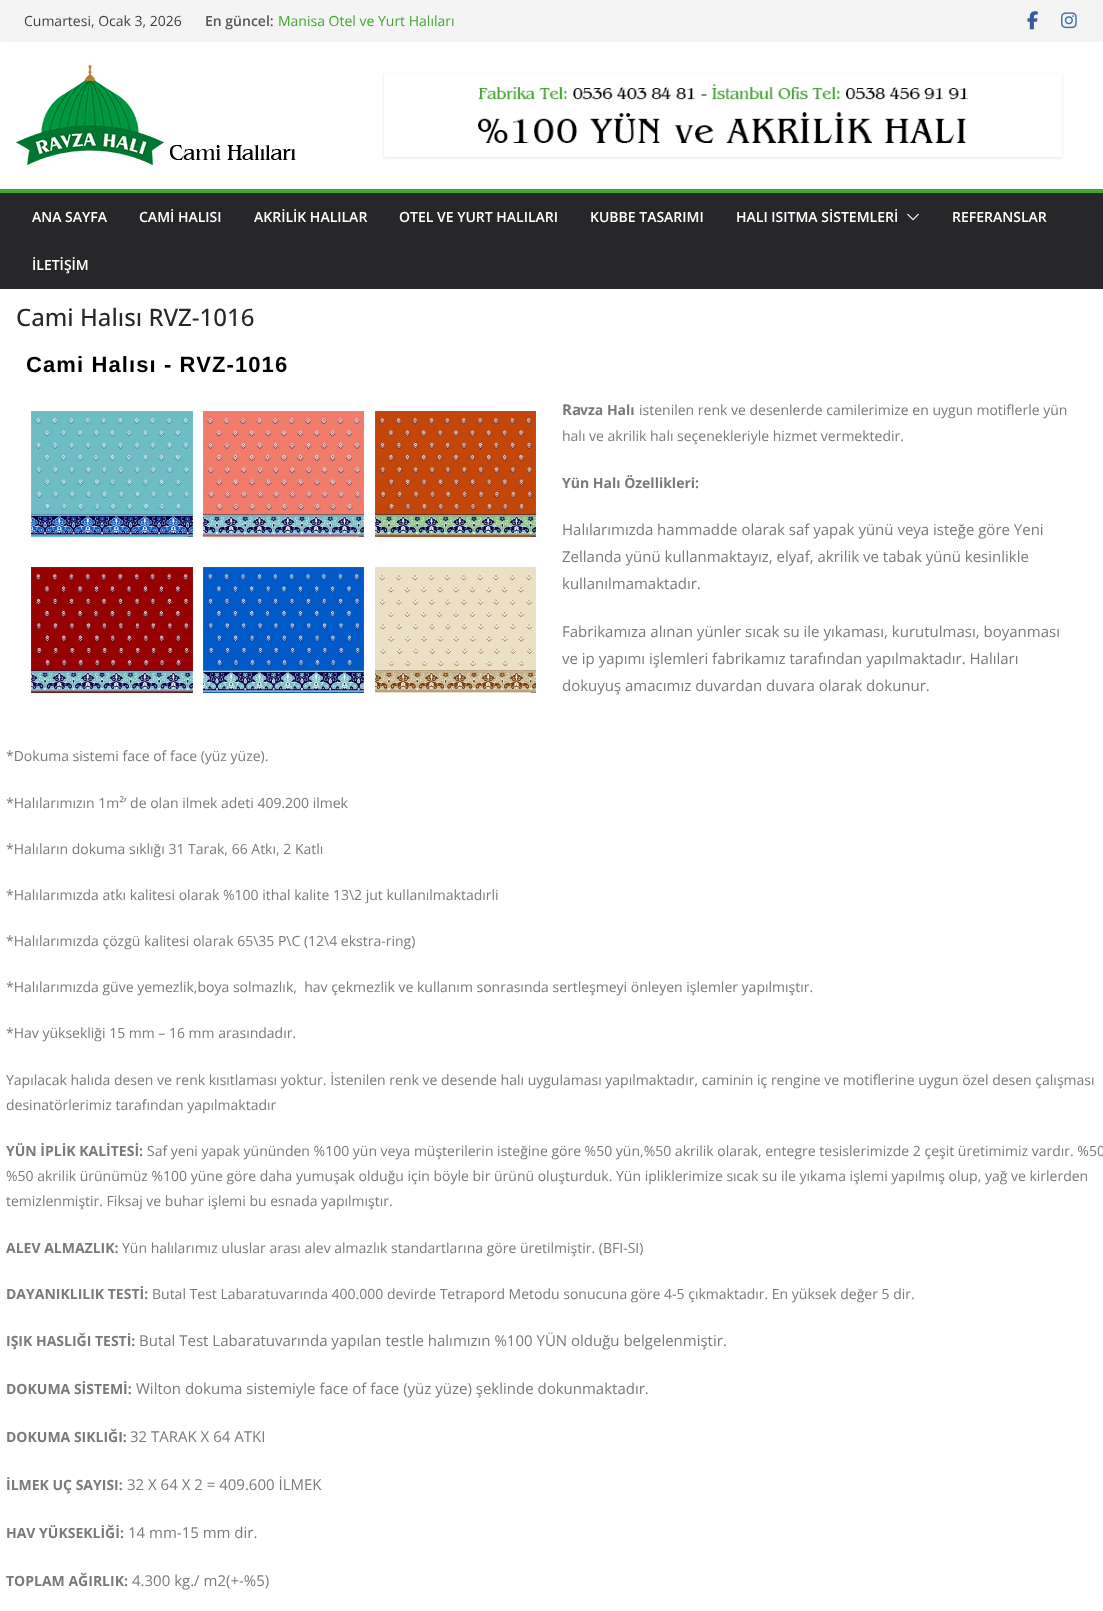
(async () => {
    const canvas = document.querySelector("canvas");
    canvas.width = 1103;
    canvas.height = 1611;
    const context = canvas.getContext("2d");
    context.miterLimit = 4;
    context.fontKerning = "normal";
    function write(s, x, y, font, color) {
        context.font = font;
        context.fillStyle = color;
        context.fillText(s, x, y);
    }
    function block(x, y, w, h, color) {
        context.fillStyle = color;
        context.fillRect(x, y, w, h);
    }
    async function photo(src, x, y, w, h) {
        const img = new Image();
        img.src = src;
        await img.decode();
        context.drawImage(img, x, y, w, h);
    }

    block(0, 0, 1103, 1611, "rgb(255, 255, 255)");
    context.fillStyle = "rgba(0, 0, 0, 0.1)";
    context.filter = "blur(1px)";
    context.beginPath();
    context.rect(0, 0, 1103, 41);
    context.fill();
    context.filter = "none";
    block(0, 0, 1103, 41, "rgb(244, 244, 245)");
    write("Cumartesi, Ocak 3, 2026", 24, 26, "14px Open Sans", "rgb(63, 63, 70)");
    write("En güncel:", 205, 26, "600 14px Open Sans", "rgb(85, 85, 85)");
    write("Manisa Otel ve Yurt Halıları", 278, 26, "14px Open Sans", "rgb(68, 165, 51)");
    await photo("media/1.png", 1027, 11, 11, 19);
    await photo("media/2.png", 1061, 12, 16, 17);
    await photo("media/3.png", 16, 65, 280, 100);
    context.save();
    context.beginPath();
    context.moveTo(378, 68);
    context.lineTo(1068, 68);
    context.lineTo(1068, 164);
    context.lineTo(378, 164);
    context.closePath();
    context.moveTo(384, 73);
    context.lineTo(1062, 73);
    context.lineTo(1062, 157);
    context.lineTo(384, 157);
    context.closePath();
    context.clip("evenodd");
    context.fillStyle = "rgba(0, 0, 0, 0.1)";
    context.filter = "blur(1.5px)";
    context.beginPath();
    context.rect(384, 74, 678, 84);
    context.fill();
    context.filter = "none";
    context.restore();
    await photo("media/4.png", 478, 84, 490, 59);
    block(0, 193, 1103, 96, "rgb(39, 39, 42)");
    block(0, 189, 1103, 4, "rgb(68, 165, 51)");
    write("ANA SAYFA", 32, 222, "600 14px Open Sans", "rgb(255, 255, 255)");
    write("CAMİ HALISI", 139, 222, "600 14px Open Sans", "rgb(255, 255, 255)");
    write("AKRİLİK HALILAR", 254, 222, "600 14px Open Sans", "rgb(255, 255, 255)");
    write("OTEL VE YURT HALILARI", 399, 222, "600 14px Open Sans", "rgb(255, 255, 255)");
    write("KUBBE TASARIMI", 590, 222, "600 14px Open Sans", "rgb(255, 255, 255)");
    write("HALI ISITMA SİSTEMLERİ", 736, 222, "600 14px Open Sans", "rgb(255, 255, 255)");
    await photo("media/5.png", 907, 213, 12, 8);
    write("REFERANSLAR", 952, 222, "600 14px Open Sans", "rgb(255, 255, 255)");
    write("İLETİŞİM", 32, 270, "600 14px Open Sans", "rgb(255, 255, 255)");
    write("Cami Halısı RVZ-1016", 16, 326, "500 24px Open Sans", "rgb(39, 39, 42)");
    context.letterSpacing = "1.1px";
    write("Cami Halısı - RVZ-1016", 26, 372, "bold 22px Liberation Sans", "rgb(0, 0, 0)");
    await photo("media/6.png", 31, 411, 162, 126);
    await photo("media/7.png", 203, 411, 161, 126);
    await photo("media/8.png", 375, 411, 161, 126);
    await photo("media/9.png", 31, 567, 162, 126);
    await photo("media/10.png", 203, 567, 161, 126);
    await photo("media/11.png", 375, 567, 161, 126);
    context.letterSpacing = "0px";
    write("Ra", 562, 415, "bold 15px Open Sans", "rgb(122, 122, 122)");
    write("vza Halı", 580, 415, "bold 14px Open Sans", "rgb(122, 122, 122)");
    write("istenilen renk ve desenlerde camilerimize en uygun motiflerle yün", 639, 415, "14px Open Sans", "rgb(122, 122, 122)");
    write("halı ve akrilik halı seçenekleriyle hizmet vermektedir.", 562, 441, "14px Open Sans", "rgb(122, 122, 122)");
    write("Yün Halı Özellikleri:", 562, 488, "bold 14px Open Sans", "rgb(122, 122, 122)");
    write("Halılarımızda hammadde olarak saf yapak yünü veya isteğe göre Yeni", 562, 535, "15px Open Sans", "rgb(122, 122, 122)");
    write("Zellanda yünü kullanmaktayız, elyaf, akrilik ve tabak yünü kesinlikle", 562, 562, "15px Open Sans", "rgb(122, 122, 122)");
    write("kullanılmamaktadır.", 562, 589, "15px Open Sans", "rgb(122, 122, 122)");
    write("Fabrikamıza alınan yünler sıcak su ile yıkaması, kurutulması, boyanması", 562, 637, "15px Open Sans", "rgb(122, 122, 122)");
    write("ve ip yapımı işlemleri fabrikamız tarafından yapılmaktadır. Halıları", 562, 664, "15px Open Sans", "rgb(122, 122, 122)");
    write("dokuyuş amacımız duvardan duvara olarak dokunur.", 562, 691, "15px Open Sans", "rgb(122, 122, 122)");
    write("*Dokuma sistemi face of face (yüz yüze).", 6, 761, "14px Open Sans", "rgb(122, 122, 122)");
    write("*Halılarımızın 1m²’ de olan ilmek adeti 409.200 ilmek", 6, 808, "14px Open Sans", "rgb(122, 122, 122)");
    write("*Halıların dokuma sıklığı 31 Tarak, 66 Atkı, 2 Katlı", 6, 854, "14px Open Sans", "rgb(122, 122, 122)");
    write("*Halılarımızda atkı kalitesi olarak %100 ithal kalite 13\\2 jut kullanılmaktadırli", 6, 900, "14px Open Sans", "rgb(122, 122, 122)");
    write("*Halılarımızda çözgü kalitesi olarak 65\\35 P\\C (12\\4 ekstra-ring)", 6, 946, "14px Open Sans", "rgb(122, 122, 122)");
    write("*Halılarımızda güve yemezlik,boya solmazlık,  hav çekmezlik ve kullanım sonrasında sertleşmeyi önleyen işlemler yapılmıştır.", 6, 992, "14px Open Sans", "rgb(122, 122, 122)");
    write("*Hav yüksekliği 15 mm – 16 mm arasındadır.", 6, 1038, "14px Open Sans", "rgb(122, 122, 122)");
    write("Yapılacak halıda desen ve renk kısıtlaması yoktur. İstenilen renk ve desende halı uygulaması yapılmaktadır, caminin iç rengine ve motiflerine uygun özel desen çalışması", 6, 1085, "14px Open Sans", "rgb(122, 122, 122)");
    write("desinatörlerimiz tarafından yapılmaktadır", 6, 1110, "14px Open Sans", "rgb(122, 122, 122)");
    write("YÜN İPLİK KALİTESİ:", 6, 1156, "bold 14px Open Sans", "rgb(122, 122, 122)");
    write("Saf yeni yapak yününden %100 yün veya müşterilerin isteğine göre %50 yün,%50 akrilik olarak, entegre tesislerimizde 2 çeşit üretimimiz vardır. %50", 147, 1156, "14px Open Sans", "rgb(122, 122, 122)");
    write("%50 akrilik ürünümüz %100 yüne göre daha yumuşak olduğu için böyle bir ürünü oluşturduk. Yün ipliklerimize sıcak su ile yıkama işlemi yapılmış olup, yağ ve kirlerden", 6, 1181, "14px Open Sans", "rgb(122, 122, 122)");
    write("temizlenmiştir. Fiksaj ve buhar işlemi bu esnada yapılmıştır.", 6, 1206, "14px Open Sans", "rgb(122, 122, 122)");
    write("ALEV ALMAZLIK:", 6, 1253, "bold 14px Open Sans", "rgb(122, 122, 122)");
    write("Yün halılarımız uluslar arası alev almazlık standartlarına göre üretilmiştir. (BFI-SI)", 122, 1253, "14px Open Sans", "rgb(122, 122, 122)");
    write("DAYANIKLILIK TESTİ:", 6, 1299, "bold 14px Open Sans", "rgb(122, 122, 122)");
    write("Butal Test Labaratuvarında 400.000 devirde Tetrapord Metodu sonucuna göre 4-5 çıkmaktadır. En yüksek değer 5 dir.", 152, 1299, "14px Open Sans", "rgb(122, 122, 122)");
    write("IŞIK HASLIĞI TESTİ:", 6, 1346, "bold 14px Open Sans", "rgb(122, 122, 122)");
    write("Butal Test Labaratuvarında yapılan testle halımızın %100 YÜN olduğu belgelenmiştir.", 139, 1346, "15px Open Sans", "rgb(122, 122, 122)");
    write("DOKUMA SİSTEMİ:", 6, 1394, "bold 14px Open Sans", "rgb(122, 122, 122)");
    write("Wilton dokuma sistemiyle face of face (yüz yüze) şeklinde dokunmaktadır.", 136, 1394, "15px Open Sans", "rgb(122, 122, 122)");
    write("DOKUMA SIKLIĞI:", 6, 1442, "bold 14px Open Sans", "rgb(122, 122, 122)");
    write("32 TARAK X 64 ATKI", 130, 1442, "15px Open Sans", "rgb(122, 122, 122)");
    write("İLMEK UÇ SAYISI:", 6, 1490, "bold 14px Open Sans", "rgb(122, 122, 122)");
    write("32 X 64 X 2 = 409.600 İLMEK", 127, 1490, "15px Open Sans", "rgb(122, 122, 122)");
    write("HAV YÜKSEKLİĞİ:", 6, 1538, "bold 14px Open Sans", "rgb(122, 122, 122)");
    write("14 mm-15 mm dir.", 128, 1538, "15px Open Sans", "rgb(122, 122, 122)");
    write("TOPLAM AĞIRLIK:", 6, 1586, "bold 14px Open Sans", "rgb(122, 122, 122)");
    write("4.300 kg./ m2(+-%5)", 132, 1586, "15px Open Sans", "rgb(122, 122, 122)");
})();
